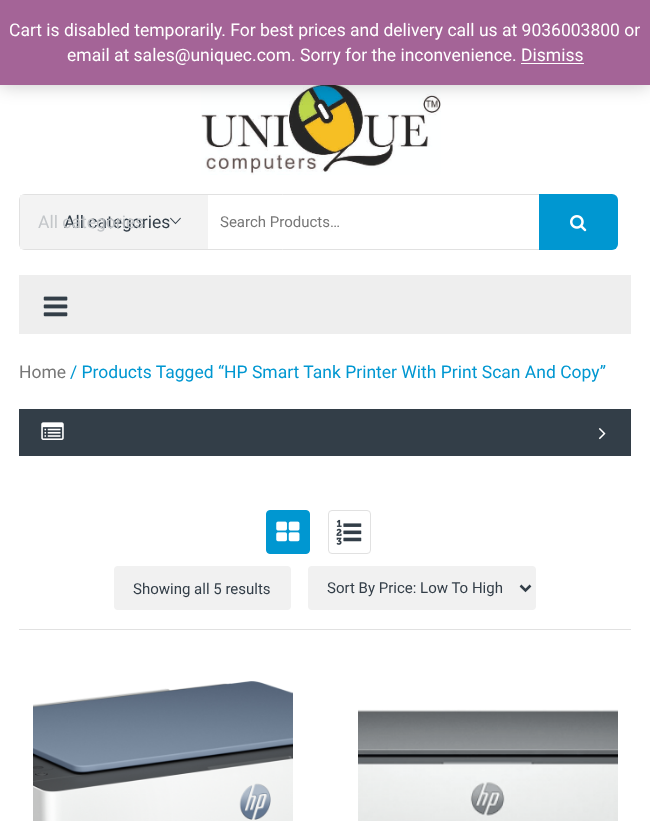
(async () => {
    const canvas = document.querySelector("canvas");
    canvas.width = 650;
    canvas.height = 821;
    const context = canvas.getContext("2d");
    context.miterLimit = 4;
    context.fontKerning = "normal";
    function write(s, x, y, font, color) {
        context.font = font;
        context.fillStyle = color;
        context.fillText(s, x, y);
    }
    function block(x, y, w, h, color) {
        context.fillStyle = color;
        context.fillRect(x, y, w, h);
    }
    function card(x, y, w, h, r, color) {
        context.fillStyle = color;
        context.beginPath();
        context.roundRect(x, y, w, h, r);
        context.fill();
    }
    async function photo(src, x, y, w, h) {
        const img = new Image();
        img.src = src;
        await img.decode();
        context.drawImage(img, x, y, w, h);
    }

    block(0, 0, 650, 821, "rgb(255, 255, 255)");
    await photo("media/1.png", 201, 85, 240, 90);
    context.fillStyle = "rgba(0, 0, 0, 0.2)";
    context.filter = "blur(9px)";
    context.beginPath();
    context.rect(0, 1, 650, 85);
    context.fill();
    context.filter = "none";
    block(0, 0, 650, 85, "rgb(164, 100, 151)");
    write("Cart is disabled temporarily. For best prices and delivery call us at 9036003800 or", 9, 36, "17.5px Roboto", "rgb(255, 255, 255)");
    write("email at sales@uniquec.com. Sorry for the inconvenience. Dismiss", 67, 61, "17.5px Roboto", "rgb(255, 255, 255)");
    block(521, 63, 63, 1, "rgb(255, 255, 255)");
    context.beginPath();
    context.roundRect(19.5, 194.5, 520, 55, [5.5, 0, 0, 5.5]);
    context.strokeStyle = "rgb(225, 225, 225)";
    context.stroke();
    block(20, 195, 188, 54, "rgb(243, 243, 243)");
    write("All categories", 64, 228, "17.5px Roboto", "rgb(51, 62, 72)");
    write("All categories", 38, 228, "17.5px Roboto", "rgb(195, 198, 201)");
    await photo("media/2.png", 170, 217, 11, 8);
    write("Search Products…", 220, 227, "15px Roboto", "rgb(119, 119, 119)");
    context.fillStyle = "rgb(0, 151, 209)";
    context.beginPath();
    context.roundRect(539, 194, 79, 56, [0, 6, 6, 0]);
    context.fill();
    await photo("media/3.png", 570, 215, 17, 17);
    block(19, 275, 612, 59, "rgb(238, 238, 238)");
    await photo("media/4.png", 43, 296, 25, 21);
    write("Home", 19, 378, "17.5px Roboto", "rgb(119, 119, 119)");
    write("/ Products Tagged “HP Smart Tank Printer With Print Scan And Copy”", 70, 378, "17.5px Roboto", "rgb(0, 151, 209)");
    block(19, 409, 612, 47, "rgb(51, 62, 72)");
    await photo("media/5.png", 41, 422, 23, 18);
    await photo("media/6.png", 598, 428, 8, 12);
    block(19, 629, 612, 1, "rgb(225, 225, 225)");
    context.fillStyle = "rgb(0, 151, 209)";
    context.beginPath();
    context.roundRect(266.5, 510.5, 43, 43, 3.5);
    context.fill();
    context.strokeStyle = "rgb(0, 151, 209)";
    context.stroke();
    await photo("media/7.png", 276, 521, 24, 21);
    context.beginPath();
    context.roundRect(328.5, 510.5, 42, 43, 3.5);
    context.strokeStyle = "rgb(225, 225, 225)";
    context.stroke();
    await photo("media/8.png", 336, 519, 26, 26);
    card(114, 566, 177, 44, 4, "rgb(241, 241, 241)");
    write("Showing all 5 results", 133, 594, "15px Roboto", "rgb(51, 62, 72)");
    card(308, 566, 228, 44, 4, "rgb(241, 241, 241)");
    context.beginPath();
    context.moveTo(520.5, 585.5);
    context.lineTo(525.5, 590.5);
    context.lineTo(530.5, 585.5);
    context.strokeStyle = "rgb(51, 62, 72)";
    context.lineWidth = 2.5;
    context.stroke();
    write("Sort By Price: Low To High", 327, 593, "15px Roboto", "rgb(51, 62, 72)");
    await photo("media/9.png", 33, 681, 260, 140);
    await photo("media/10.png", 358, 709, 260, 112);
})();
